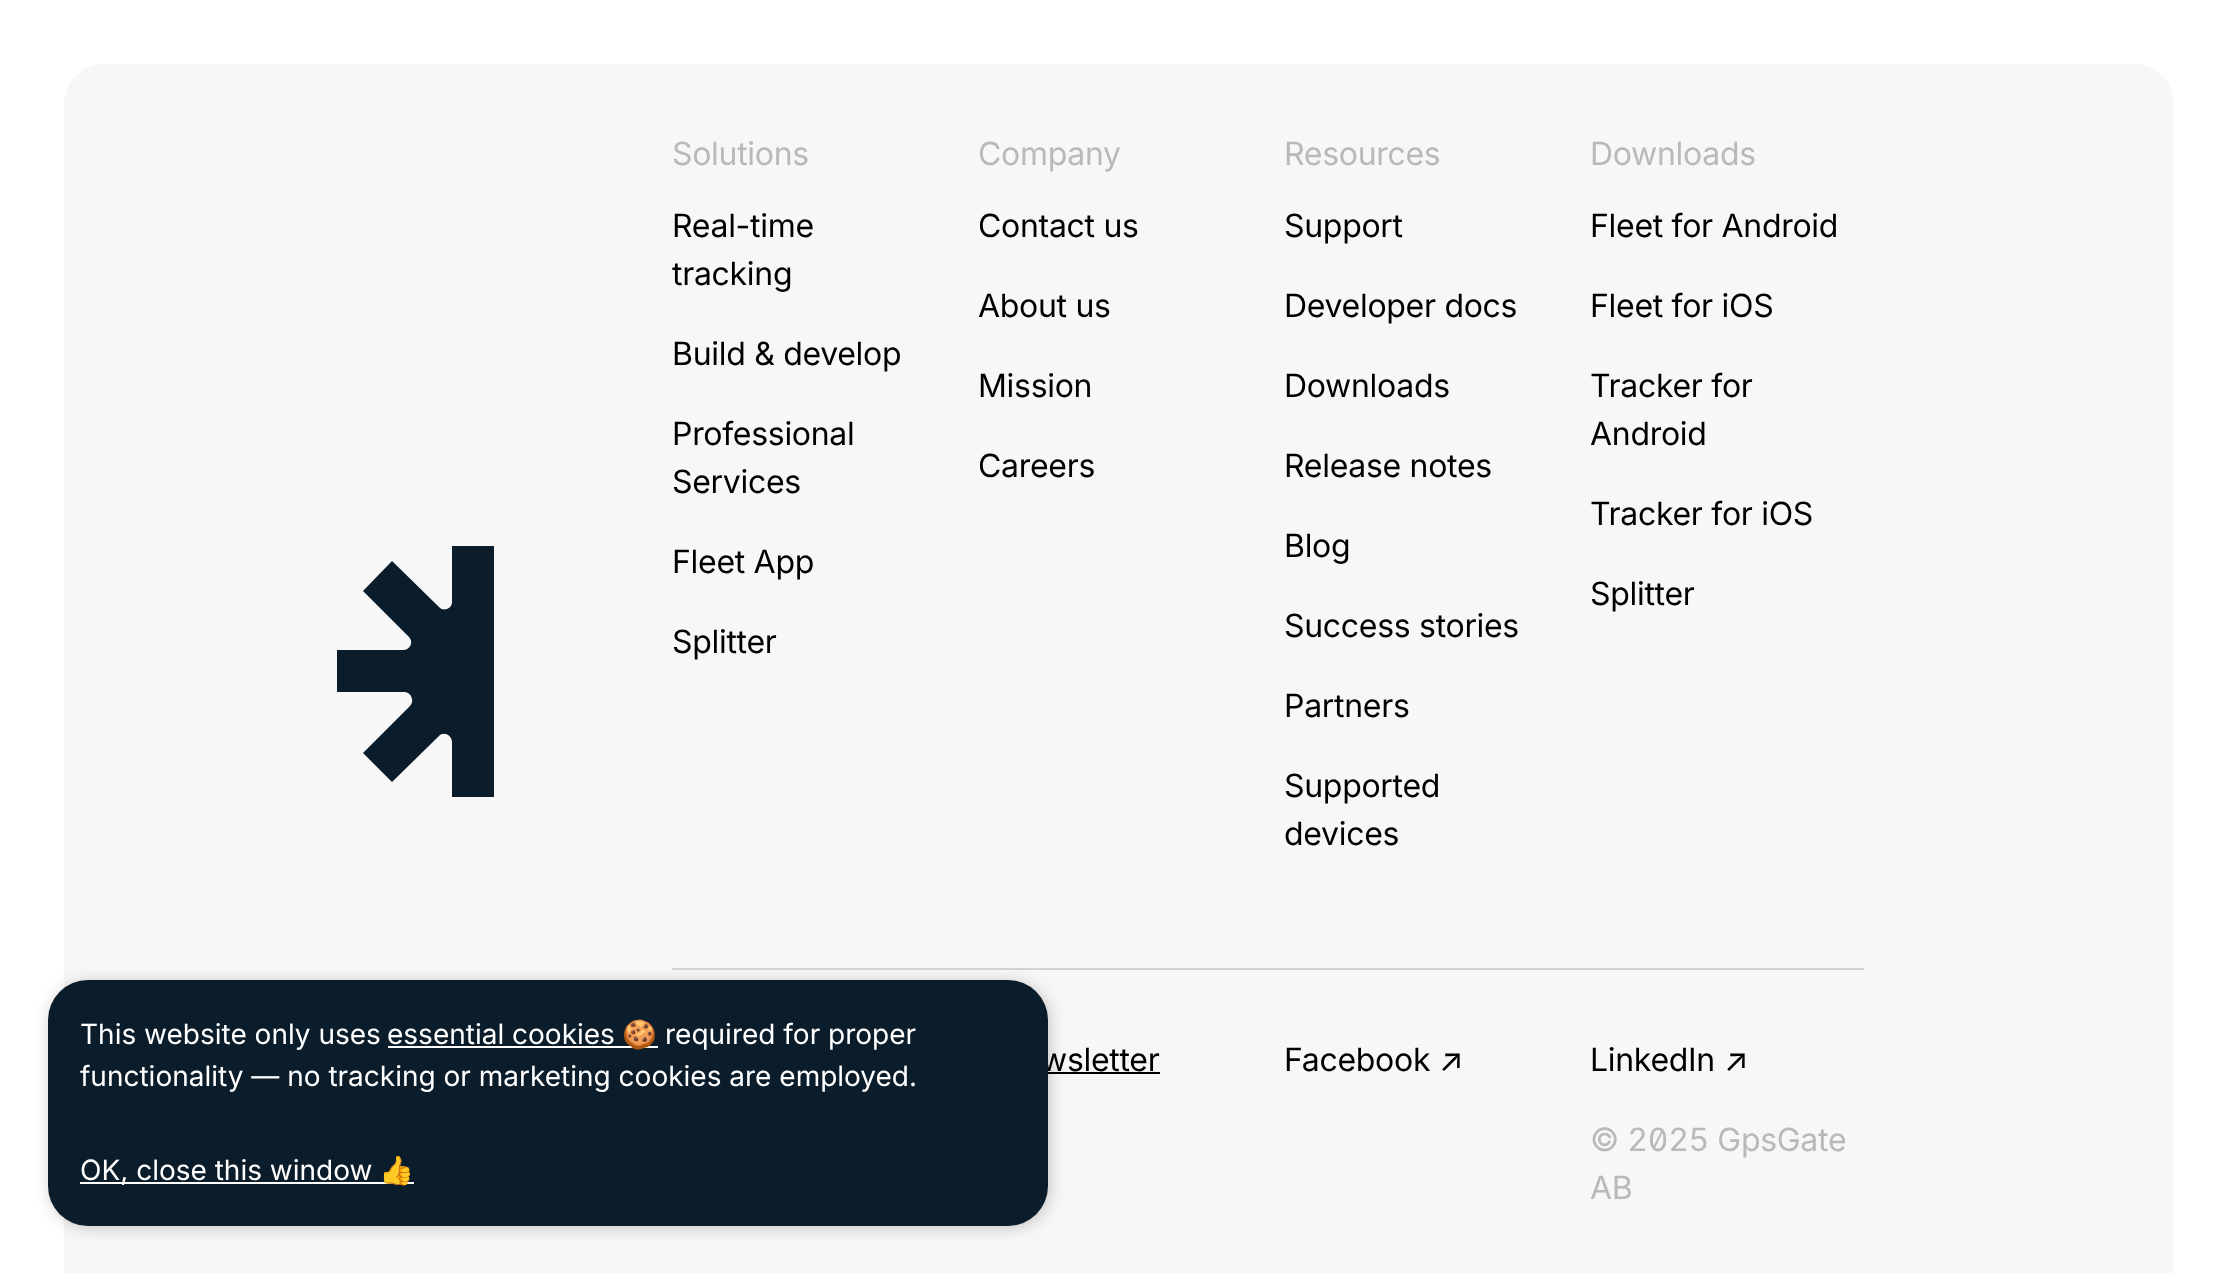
(async () => {
    const canvas = document.querySelector("canvas");
    canvas.width = 2238;
    canvas.height = 1273;
    const context = canvas.getContext("2d");
    context.miterLimit = 4;
    context.fontKerning = "normal";
    function write(s, x, y, font, color) {
        context.font = font;
        context.fillStyle = color;
        context.fillText(s, x, y);
    }
    function block(x, y, w, h, color) {
        context.fillStyle = color;
        context.fillRect(x, y, w, h);
    }
    function card(x, y, w, h, r, color) {
        context.fillStyle = color;
        context.beginPath();
        context.roundRect(x, y, w, h, r);
        context.fill();
    }

    block(0, 0, 2238, 1273, "rgb(255, 255, 255)");
    context.fillStyle = "rgb(247, 247, 247)";
    context.beginPath();
    context.moveTo(104, 64);
    context.lineTo(2134, 64);
    context.bezierCurveTo(2156, 64, 2174, 82, 2174, 104);
    context.lineTo(2174, 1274);
    context.lineTo(64, 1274);
    context.lineTo(64, 104);
    context.bezierCurveTo(64, 82, 82, 64, 104, 64);
    context.closePath();
    context.fill();
    block(672, 968, 1192, 2, "rgb(210, 210, 210)");
    block(1048, 1072, 112, 2, "rgb(0, 0, 0)");
    context.fillStyle = "rgba(0, 0, 0, 0.2)";
    context.filter = "blur(8px)";
    context.beginPath();
    context.roundRect(50, 982, 1000, 246, 40);
    context.fill();
    context.filter = "none";
    context.letterSpacing = "-0.3px";
    write("wsletter", 1041, 1071, "32px Inter", "rgb(0, 0, 0)");
    card(48, 980, 1000, 246, 40, "rgb(11, 28, 43)");
    context.letterSpacing = "0px";
    write("This website only uses", 80, 1044, "28px Inter", "rgb(255, 255, 255)");
    write("essential cookies", 387, 1044, "28px Inter", "rgb(255, 255, 255)");
    block(388, 1046, 270, 2, "rgb(255, 255, 255)");
    write("🍪", 622, 1044, "28px Noto Color Emoji", "rgb(255, 255, 255)");
    write("required for proper", 665, 1044, "28px Inter", "rgb(255, 255, 255)");
    write("functionality — no tracking or marketing cookies are employed.", 80, 1086, "28px Inter", "rgb(255, 255, 255)");
    block(80, 1182, 334, 2, "rgb(255, 255, 255)");
    write("OK, close this window", 80, 1180, "28px Inter", "rgb(255, 255, 255)");
    write("👍", 379, 1180, "28px Noto Color Emoji", "rgb(255, 255, 255)");
    context.fillStyle = "rgb(11, 28, 43)";
    context.beginPath();
    context.moveTo(494, 546);
    context.lineTo(452, 546);
    context.lineTo(452, 602);
    context.bezierCurveTo(452, 609, 443, 612, 439, 607);
    context.lineTo(392, 561);
    context.lineTo(363, 591);
    context.lineTo(409, 637);
    context.bezierCurveTo(414, 642, 410, 650, 403, 650);
    context.lineTo(337, 650);
    context.lineTo(337, 692);
    context.lineTo(404, 692);
    context.bezierCurveTo(411, 692, 415, 701, 410, 706);
    context.lineTo(363, 753);
    context.lineTo(392, 782);
    context.lineTo(439, 736);
    context.bezierCurveTo(443, 731, 452, 735, 452, 742);
    context.lineTo(452, 797);
    context.lineTo(494, 797);
    context.closePath();
    context.fill();
    context.letterSpacing = "-0.3px";
    write("Solutions", 672, 165, "32px Inter", "rgb(185, 185, 185)");
    write("Real-time", 672, 237, "32px Inter", "rgb(0, 0, 0)");
    write("tracking", 672, 285, "32px Inter", "rgb(0, 0, 0)");
    write("Build & develop", 672, 365, "32px Inter", "rgb(0, 0, 0)");
    write("Professional", 672, 445, "32px Inter", "rgb(0, 0, 0)");
    write("Services", 672, 493, "32px Inter", "rgb(0, 0, 0)");
    write("Fleet App", 672, 573, "32px Inter", "rgb(0, 0, 0)");
    write("Splitter", 672, 653, "32px Inter", "rgb(0, 0, 0)");
    write("Company", 978, 165, "32px Inter", "rgb(185, 185, 185)");
    write("Contact us", 978, 237, "32px Inter", "rgb(0, 0, 0)");
    write("About us", 978, 317, "32px Inter", "rgb(0, 0, 0)");
    write("Mission", 978, 397, "32px Inter", "rgb(0, 0, 0)");
    write("Careers", 978, 477, "32px Inter", "rgb(0, 0, 0)");
    write("Resources", 1284, 165, "32px Inter", "rgb(185, 185, 185)");
    write("Support", 1284, 237, "32px Inter", "rgb(0, 0, 0)");
    write("Developer docs", 1284, 317, "32px Inter", "rgb(0, 0, 0)");
    write("Downloads", 1284, 397, "32px Inter", "rgb(0, 0, 0)");
    write("Release notes", 1284, 477, "32px Inter", "rgb(0, 0, 0)");
    write("Blog", 1284, 557, "32px Inter", "rgb(0, 0, 0)");
    write("Success stories", 1284, 637, "32px Inter", "rgb(0, 0, 0)");
    write("Partners", 1284, 717, "32px Inter", "rgb(0, 0, 0)");
    write("Supported", 1284, 797, "32px Inter", "rgb(0, 0, 0)");
    write("devices", 1284, 845, "32px Inter", "rgb(0, 0, 0)");
    write("Downloads", 1590, 165, "32px Inter", "rgb(185, 185, 185)");
    write("Fleet for Android", 1590, 237, "32px Inter", "rgb(0, 0, 0)");
    write("Fleet for iOS", 1590, 317, "32px Inter", "rgb(0, 0, 0)");
    write("Tracker for", 1590, 397, "32px Inter", "rgb(0, 0, 0)");
    write("Android", 1590, 445, "32px Inter", "rgb(0, 0, 0)");
    write("Tracker for iOS", 1590, 525, "32px Inter", "rgb(0, 0, 0)");
    write("Splitter", 1590, 605, "32px Inter", "rgb(0, 0, 0)");
    write("Facebook ↗", 1284, 1071, "32px Inter", "rgb(0, 0, 0)");
    write("LinkedIn ↗", 1590, 1071, "32px Inter", "rgb(0, 0, 0)");
    write("© 2025 GpsGate", 1590, 1151, "32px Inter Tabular", "rgb(185, 185, 185)");
    write("AB", 1590, 1199, "32px Inter", "rgb(185, 185, 185)");
})();
